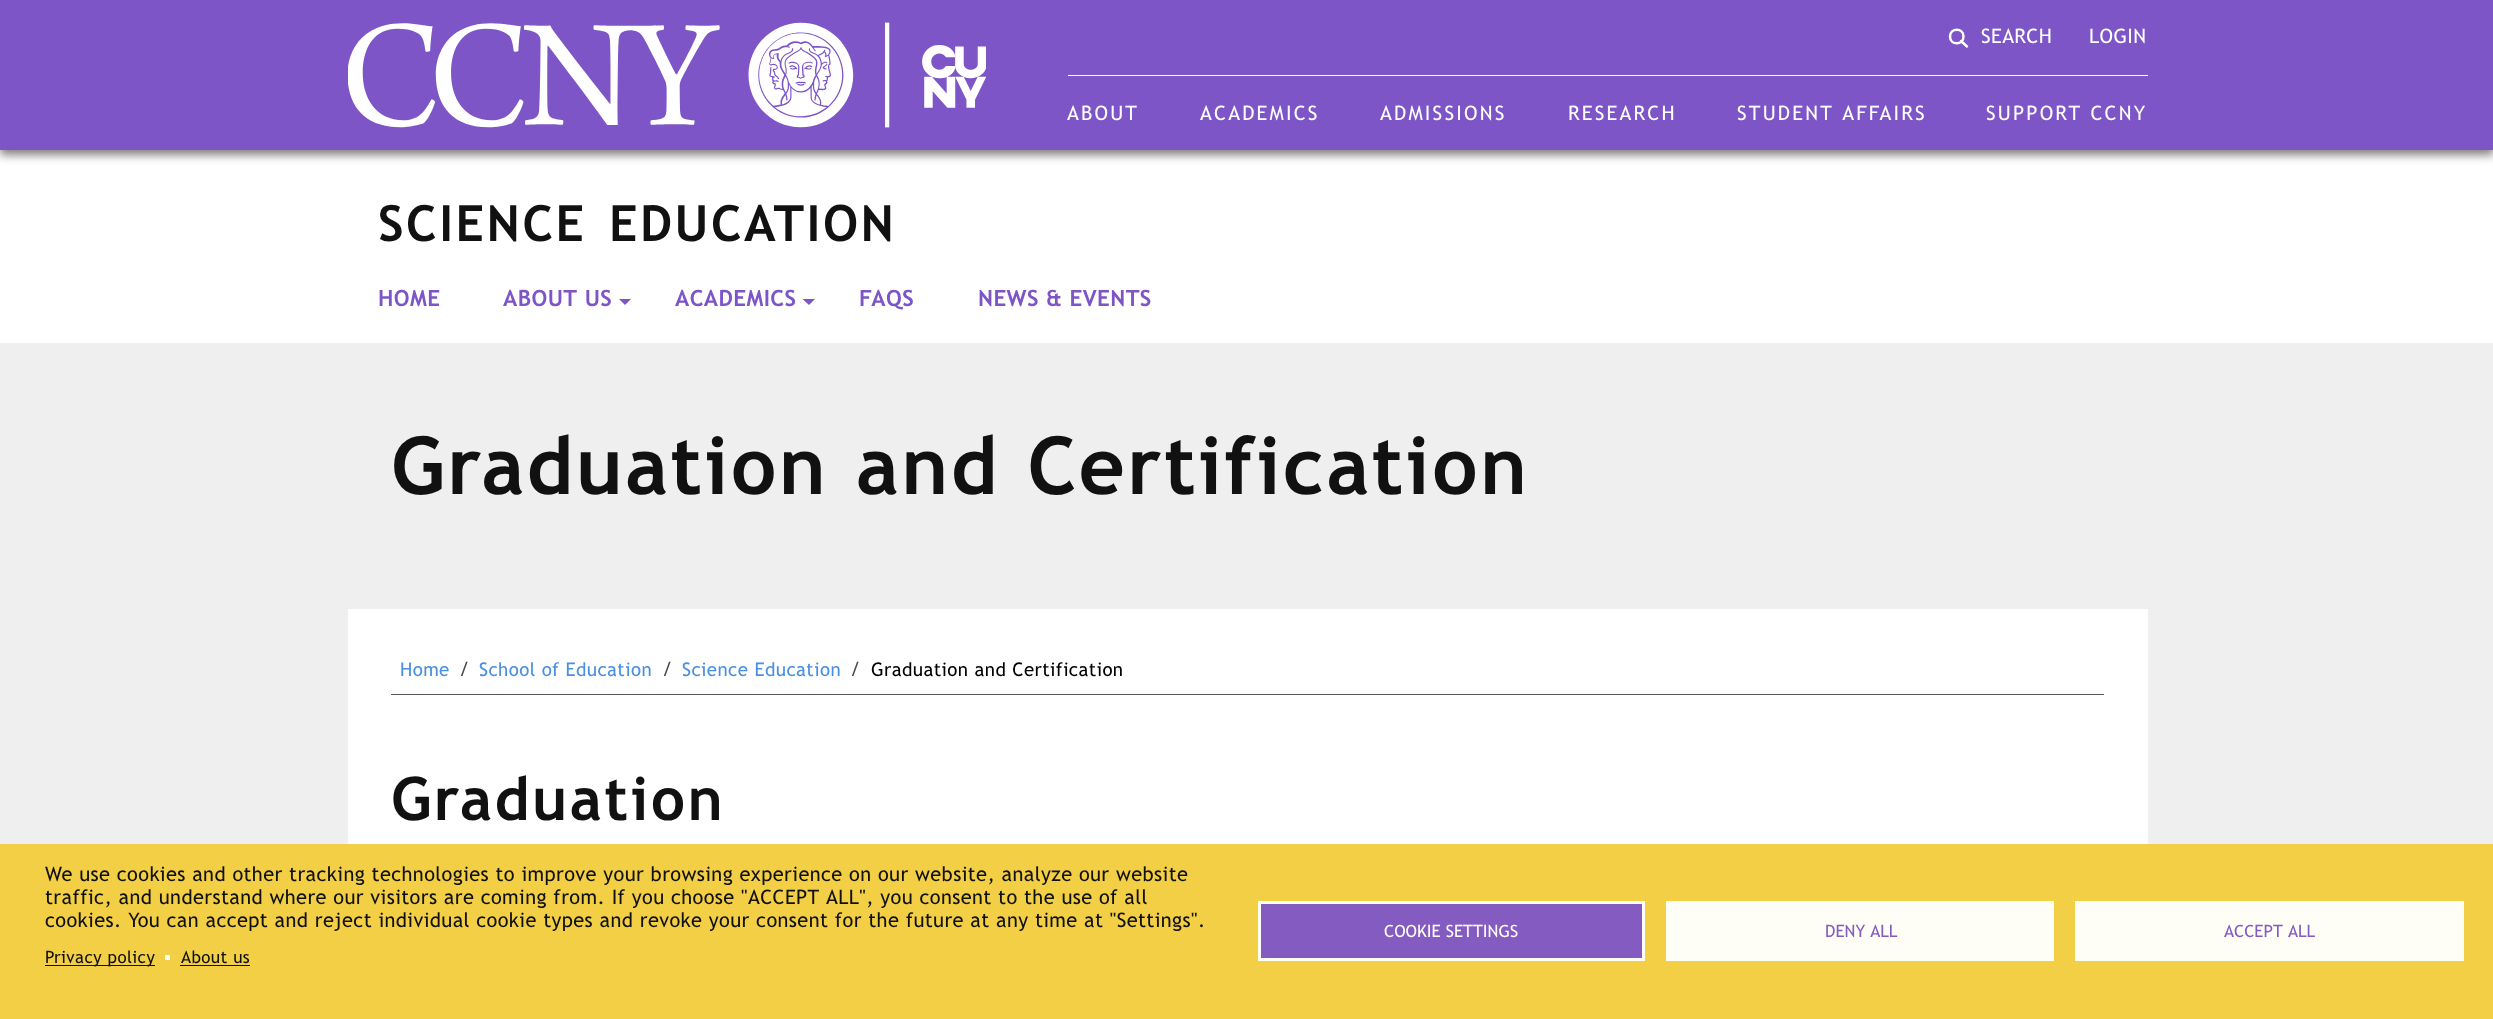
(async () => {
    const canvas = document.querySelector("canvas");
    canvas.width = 2493;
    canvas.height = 1019;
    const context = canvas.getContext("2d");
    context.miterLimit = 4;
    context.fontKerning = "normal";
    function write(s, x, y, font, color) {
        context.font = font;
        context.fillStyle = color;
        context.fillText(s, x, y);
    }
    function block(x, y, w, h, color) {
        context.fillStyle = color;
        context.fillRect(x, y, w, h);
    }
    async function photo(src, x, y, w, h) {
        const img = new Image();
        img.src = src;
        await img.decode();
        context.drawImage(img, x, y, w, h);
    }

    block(0, 0, 2493, 1019, "rgb(255, 255, 255)");
    context.fillStyle = "rgba(0, 0, 0, 0.5)";
    context.filter = "blur(5px)";
    context.beginPath();
    context.rect(0, 5, 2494, 150);
    context.fill();
    context.filter = "none";
    block(0, 0, 2493, 150, "rgb(125, 85, 199)");
    await photo("media/1.png", 348, 22, 638, 106);
    context.beginPath();
    context.moveTo(1963.5, 36.5);
    context.bezierCurveTo(1963.5, 45.5, 1950, 45.5, 1950, 36.5);
    context.bezierCurveTo(1950, 27.5, 1963.5, 27.5, 1963.5, 36.5);
    context.closePath();
    context.moveTo(1961, 41);
    context.lineTo(1967, 46.5);
    context.strokeStyle = "rgb(255, 255, 255)";
    context.lineWidth = 2.5;
    context.lineCap = "round";
    context.lineJoin = "round";
    context.stroke();
    context.letterSpacing = "0.4px";
    write("SEARCH", 1981, 43, "20px Trebuchet MS", "rgb(255, 255, 255)");
    write("LOGIN", 2089, 43, "20px Trebuchet MS", "rgb(255, 255, 255)");
    block(1068, 75, 1080, 1, "rgb(255, 255, 255)");
    context.letterSpacing = "2.2px";
    write("ABOUT", 1067, 120, "20px Trebuchet MS", "rgb(255, 255, 255)");
    write("ACADEMICS", 1200, 120, "20px Trebuchet MS", "rgb(255, 255, 255)");
    write("ADMISSIONS", 1380, 120, "20px Trebuchet MS", "rgb(255, 255, 255)");
    write("RESEARCH", 1568, 120, "20px Trebuchet MS", "rgb(255, 255, 255)");
    write("STUDENT AFFAIRS", 1737, 120, "20px Trebuchet MS", "rgb(255, 255, 255)");
    write("SUPPORT CCNY", 1986, 120, "20px Trebuchet MS", "rgb(255, 255, 255)");
    context.letterSpacing = "2.5px";
    context.wordSpacing = "5px";
    write("SCIENCE EDUCATION", 378, 241, "bold 50px Trebuchet MS", "rgb(17, 17, 17)");
    context.letterSpacing = "0.4px";
    context.wordSpacing = "0px";
    write("HOME", 378, 306, "bold 22.5px Trebuchet MS", "rgb(125, 85, 199)");
    write("ABOUT US", 503, 306, "bold 22.5px Trebuchet MS", "rgb(125, 85, 199)");
    context.beginPath();
    context.moveTo(619, 299);
    context.lineTo(631, 299);
    context.lineTo(625, 305);
    context.closePath();
    context.fill();
    write("ACADEMICS", 675, 306, "bold 22.5px Trebuchet MS", "rgb(125, 85, 199)");
    context.beginPath();
    context.moveTo(802.5, 299);
    context.lineTo(815, 299);
    context.lineTo(809, 305);
    context.closePath();
    context.fill();
    write("FAQS", 859, 306, "bold 22.5px Trebuchet MS", "rgb(125, 85, 199)");
    write("NEWS & EVENTS", 978, 306, "bold 22.5px Trebuchet MS", "rgb(125, 85, 199)");
    block(0, 343, 2493, 501, "rgb(239, 239, 239)");
    context.letterSpacing = "2.5px";
    context.wordSpacing = "1px";
    write("Graduation and Certification", 391, 494, "bold 80px Trebuchet MS", "rgb(17, 17, 17)");
    block(348, 609, 1800, 235, "rgb(255, 255, 255)");
    block(391, 694, 1713, 1, "rgb(86, 86, 86)");
    context.letterSpacing = "0.4px";
    context.wordSpacing = "0px";
    write("Home", 400, 676, "18.75px Trebuchet MS", "rgb(74, 144, 226)");
    write("/", 459, 676, "20px Trebuchet MS", "rgb(70, 70, 70)");
    write("School of Education", 479, 676, "18.75px Trebuchet MS", "rgb(74, 144, 226)");
    write("/", 662, 676, "20px Trebuchet MS", "rgb(70, 70, 70)");
    write("Science Education", 682, 676, "18.75px Trebuchet MS", "rgb(74, 144, 226)");
    write("/", 850, 676, "20px Trebuchet MS", "rgb(70, 70, 70)");
    write("Graduation and Certification", 871, 676, "18.75px Trebuchet MS", "rgb(0, 0, 0)");
    context.letterSpacing = "2.5px";
    write("Graduation", 391, 820, "bold 60px Trebuchet MS", "rgb(17, 17, 17)");
    block(0, 844, 2493, 175, "rgb(243, 207, 69)");
    context.letterSpacing = "0.4px";
    write("We use cookies and other tracking technologies to improve your browsing experience on our website, analyze our website", 45, 881, "20px Trebuchet MS", "rgb(17, 17, 17)");
    write("traffic, and understand where our visitors are coming from. If you choose \"ACCEPT ALL\", you consent to the use of all", 45, 904, "20px Trebuchet MS", "rgb(17, 17, 17)");
    write("cookies. You can accept and reject individual cookie types and revoke your consent for the future at any time at \"Settings\".", 45, 927, "20px Trebuchet MS", "rgb(17, 17, 17)");
    block(45, 965, 110, 1, "rgb(17, 17, 17)");
    write("Privacy policy", 45, 963, "17px Trebuchet MS", "rgb(17, 17, 17)");
    block(165, 955, 5, 5, "rgb(255, 255, 255)");
    write("About us", 181, 963, "17px Trebuchet MS", "rgb(17, 17, 17)");
    block(180, 965, 70, 1, "rgb(17, 17, 17)");
    context.fillStyle = "rgb(131, 91, 193)";
    context.beginPath();
    context.rect(1259.5, 902.5, 384, 57);
    context.fill();
    context.strokeStyle = "rgb(254, 253, 246)";
    context.lineWidth = 3;
    context.lineJoin = "miter";
    context.stroke();
    context.letterSpacing = "0px";
    write("COOKIE SETTINGS", 1384, 937, "17px Trebuchet MS", "rgb(254, 253, 246)");
    block(1666, 901, 388, 60, "rgb(254, 253, 246)");
    write("DENY ALL", 1825, 937, "17px Trebuchet MS", "rgb(131, 91, 193)");
    block(2075, 901, 389, 60, "rgb(254, 253, 246)");
    write("ACCEPT ALL", 2224, 937, "17px Trebuchet MS", "rgb(131, 91, 193)");
})();
